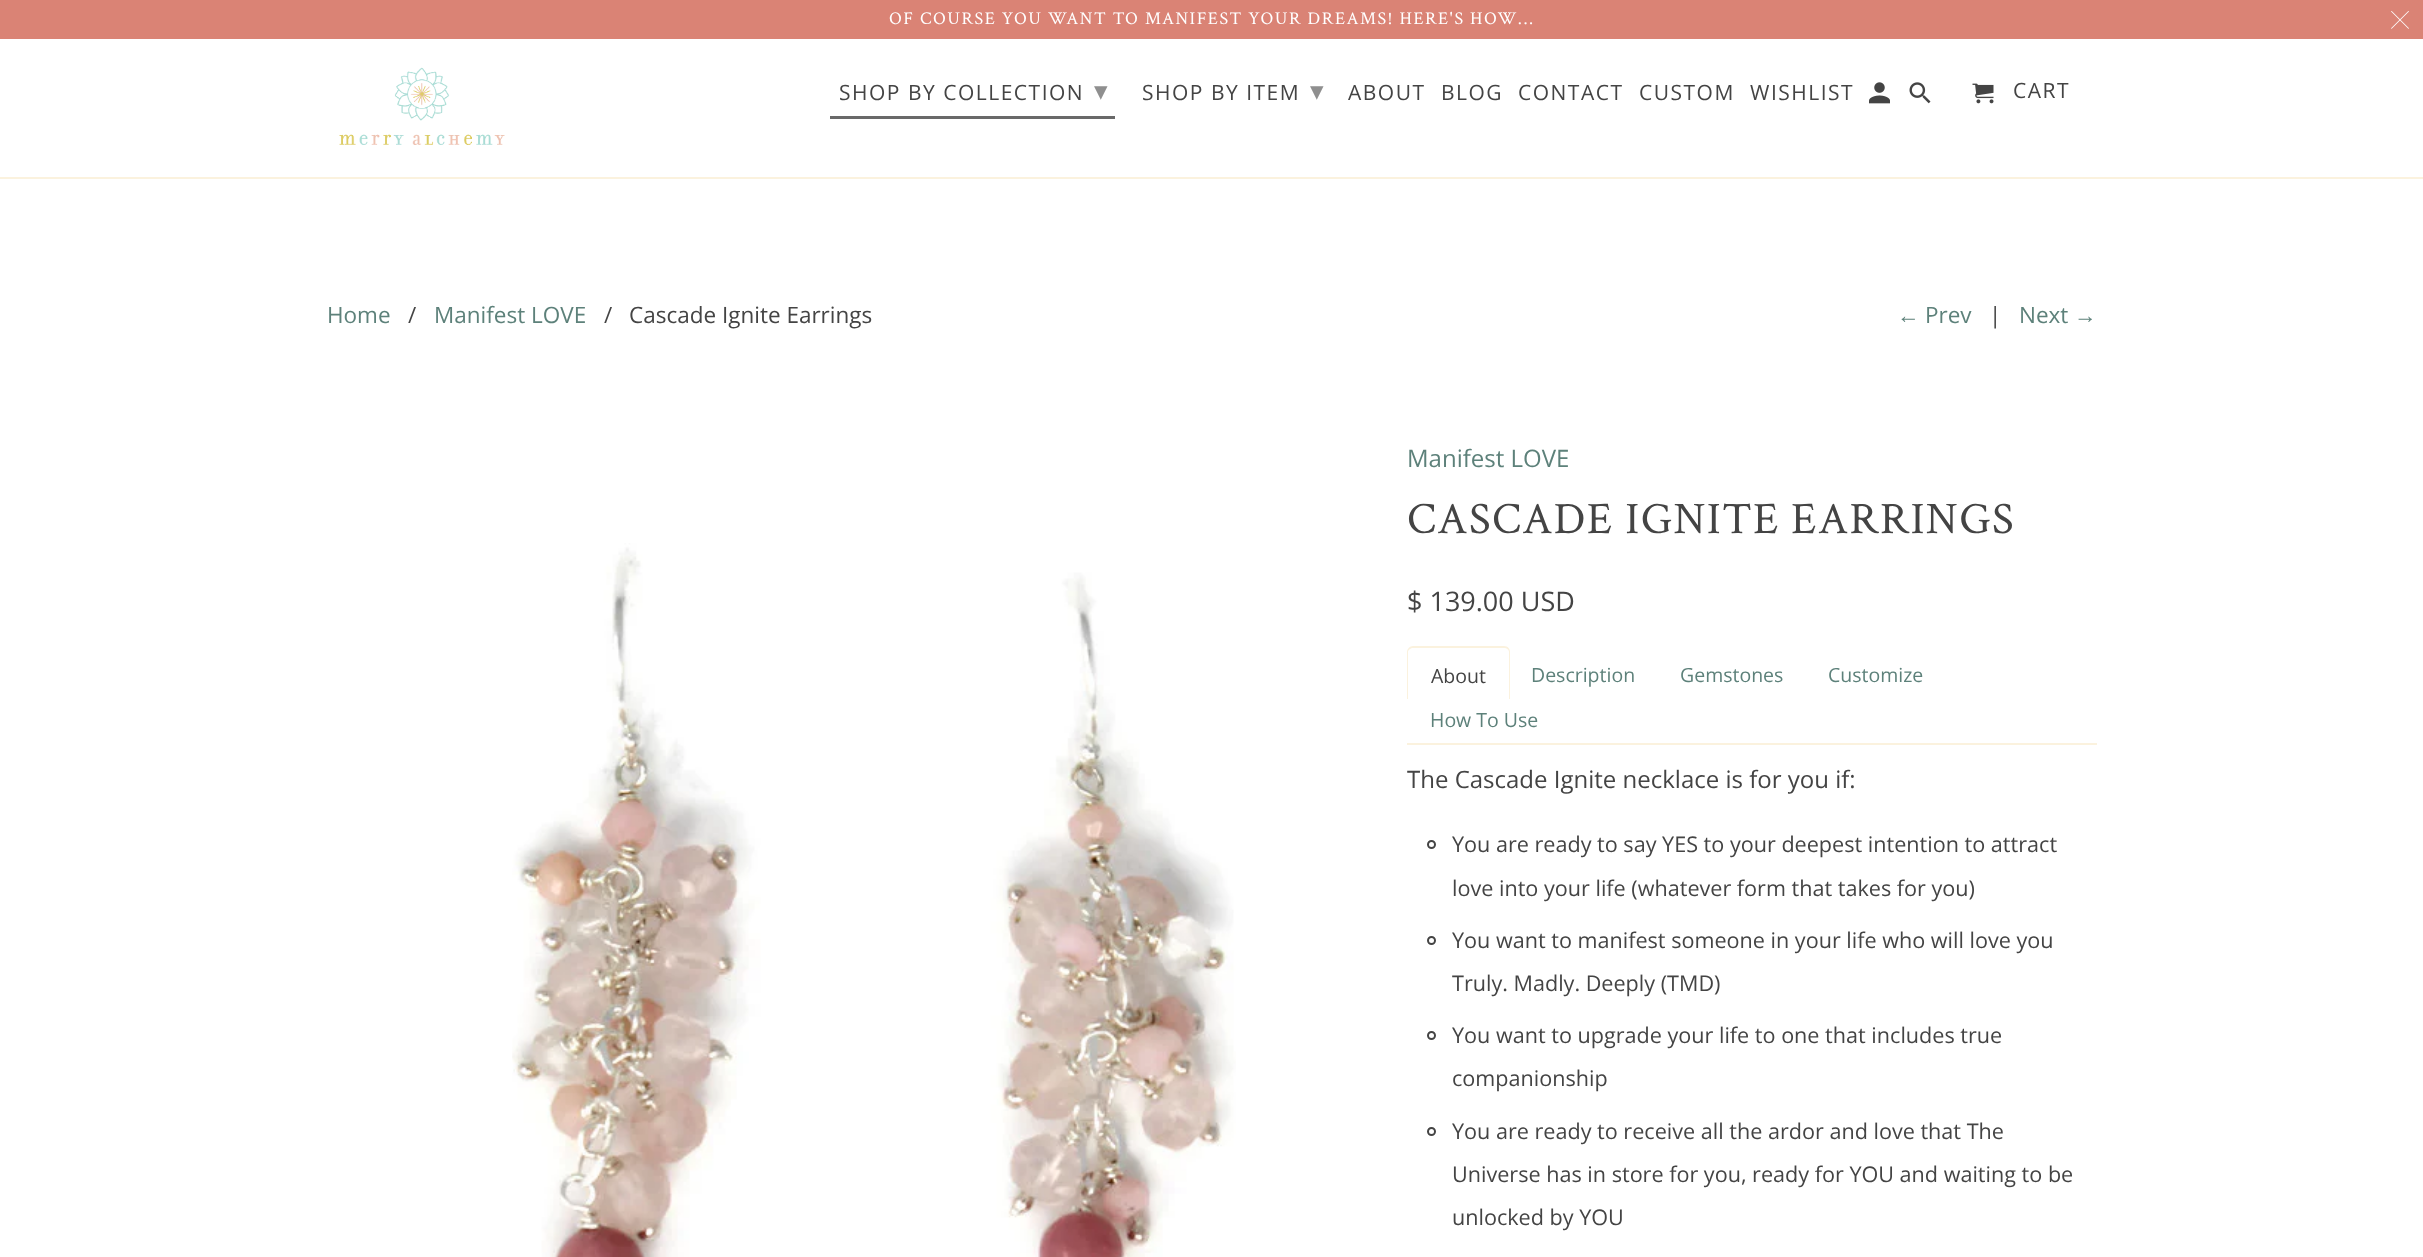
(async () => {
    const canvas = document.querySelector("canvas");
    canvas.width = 2423;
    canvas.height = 1257;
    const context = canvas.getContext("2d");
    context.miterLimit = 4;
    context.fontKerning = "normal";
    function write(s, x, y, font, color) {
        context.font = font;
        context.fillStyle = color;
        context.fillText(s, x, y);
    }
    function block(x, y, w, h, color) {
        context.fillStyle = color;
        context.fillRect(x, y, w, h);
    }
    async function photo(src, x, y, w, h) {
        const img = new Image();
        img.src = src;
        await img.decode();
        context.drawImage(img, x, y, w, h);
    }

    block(0, 0, 2423, 1257, "rgb(255, 255, 255)");
    block(0, 177, 2423, 2, "rgb(251, 242, 222)");
    block(0, 0, 2423, 39, "rgb(218, 131, 117)");
    context.letterSpacing = "1.5px";
    write("OF COURSE YOU WANT TO MANIFEST YOUR DREAMS! HERE'S HOW...", 889, 24, "18px Crimson Text", "rgb(255, 255, 255)");
    await photo("media/1.png", 2391, 11, 18, 18);
    await photo("media/2.png", 339, 67, 166, 78);
    write("SHOP BY COLLECTION", 839, 100, "21px Open Sans", "rgb(68, 68, 68)");
    write("▾", 1094, 100, "27px DejaVu Sans", "rgb(143, 143, 143)");
    block(830, 116, 285, 3, "rgb(105, 105, 105)");
    write("SHOP BY ITEM", 1142, 100, "21px Open Sans", "rgb(68, 68, 68)");
    write("▾", 1310, 100, "27px DejaVu Sans", "rgb(143, 143, 143)");
    write("ABOUT", 1348, 100, "21px Open Sans", "rgb(68, 68, 68)");
    write("BLOG", 1441, 100, "21px Open Sans", "rgb(68, 68, 68)");
    write("CONTACT", 1518, 100, "21px Open Sans", "rgb(68, 68, 68)");
    write("CUSTOM", 1639, 100, "21px Open Sans", "rgb(68, 68, 68)");
    write("WISHLIST", 1750, 100, "21px Open Sans", "rgb(68, 68, 68)");
    await photo("media/3.png", 1869, 82, 21, 22);
    await photo("media/4.png", 1909, 82, 22, 22);
    await photo("media/5.png", 1972, 83, 22, 21);
    write("CART", 2013, 98, "21px Open Sans", "rgb(68, 68, 68)");
    context.letterSpacing = "0px";
    write("Home", 327, 323, "22.5px Open Sans", "rgb(93, 129, 122)");
    write("/", 408, 323, "22.5px Open Sans", "rgb(68, 68, 68)");
    write("Manifest LOVE", 434, 323, "22.5px Open Sans", "rgb(93, 129, 122)");
    write("/", 604, 323, "22.5px Open Sans", "rgb(68, 68, 68)");
    write("Cascade Ignite Earrings", 629, 323, "22.5px Open Sans", "rgb(68, 68, 68)");
    write("←", 1897, 323, "22.5px Liberation Sans", "rgb(93, 129, 122)");
    write("Prev", 1925, 323, "22.5px Open Sans", "rgb(93, 129, 122)");
    write("|", 1989, 323, "22.5px Open Sans", "rgb(68, 68, 68)");
    write("Next", 2019, 323, "22.5px Open Sans", "rgb(93, 129, 122)");
    write("→", 2074, 323, "22.5px Liberation Sans", "rgb(93, 129, 122)");
    await photo("media/6.png", 512, 543, 724, 714);
    write("Manifest LOVE", 1407, 467, "24px Open Sans", "rgb(93, 129, 122)");
    context.letterSpacing = "1.5px";
    write("CASCADE IGNITE EARRINGS", 1407, 533, "45px Crimson Text", "rgb(68, 68, 68)");
    context.letterSpacing = "0px";
    write("$ 139.00 USD", 1407, 611, "27px Open Sans", "rgb(68, 68, 68)");
    block(1407, 743, 690, 2, "rgb(251, 242, 222)");
    context.beginPath();
    context.moveTo(1413, 646);
    context.lineTo(1504, 646);
    context.bezierCurveTo(1508, 646, 1510, 649, 1510, 652);
    context.lineTo(1510, 699);
    context.lineTo(1407, 699);
    context.lineTo(1407, 652);
    context.bezierCurveTo(1407, 649, 1410, 646, 1413, 646);
    context.closePath();
    context.moveTo(1413, 648);
    context.lineTo(1504, 648);
    context.bezierCurveTo(1507, 648, 1509, 650, 1509, 652);
    context.lineTo(1509, 699);
    context.lineTo(1408, 699);
    context.lineTo(1408, 652);
    context.bezierCurveTo(1408, 650, 1411, 648, 1413, 648);
    context.closePath();
    context.fill("evenodd");
    write("About", 1431, 683, "19.5px Open Sans", "rgb(68, 68, 68)");
    write("Description", 1531, 682, "19.5px Open Sans", "rgb(93, 129, 122)");
    write("Gemstones", 1680, 682, "19.5px Open Sans", "rgb(93, 129, 122)");
    write("Customize", 1828, 682, "19.5px Open Sans", "rgb(93, 129, 122)");
    write("How To Use", 1430, 727, "19.5px Open Sans", "rgb(93, 129, 122)");
    write("The Cascade Ignite necklace is for you if:", 1407, 788, "24px Open Sans", "rgb(68, 68, 68)");
    context.beginPath();
    context.arc(1431.5, 844.5, 3.5, 0, Math.PI * 2);
    context.strokeStyle = "rgb(68, 68, 68)";
    context.lineWidth = 2;
    context.stroke();
    write("You are ready to say YES to your deepest intention to attract", 1452, 852, "21.6px Open Sans", "rgb(68, 68, 68)");
    write("love into your life (whatever form that takes for you)", 1452, 896, "21.6px Open Sans", "rgb(68, 68, 68)");
    context.beginPath();
    context.arc(1431.5, 940.5, 3.5, 0, Math.PI * 2);
    context.stroke();
    write("You want to manifest someone in your life who will love you", 1452, 948, "21.6px Open Sans", "rgb(68, 68, 68)");
    write("Truly. Madly. Deeply (TMD)", 1452, 991, "21.6px Open Sans", "rgb(68, 68, 68)");
    context.beginPath();
    context.arc(1431.5, 1035.5, 3.5, 0, Math.PI * 2);
    context.stroke();
    write("You want to upgrade your life to one that includes true", 1452, 1043, "21.6px Open Sans", "rgb(68, 68, 68)");
    write("companionship", 1452, 1086, "21.6px Open Sans", "rgb(68, 68, 68)");
    context.beginPath();
    context.arc(1431.5, 1131.5, 3.5, 0, Math.PI * 2);
    context.stroke();
    write("You are ready to receive all the ardor and love that The", 1452, 1139, "21.6px Open Sans", "rgb(68, 68, 68)");
    write("Universe has in store for you, ready for YOU and waiting to be", 1452, 1182, "21.6px Open Sans", "rgb(68, 68, 68)");
    write("unlocked by YOU", 1452, 1225, "21.6px Open Sans", "rgb(68, 68, 68)");
})();
